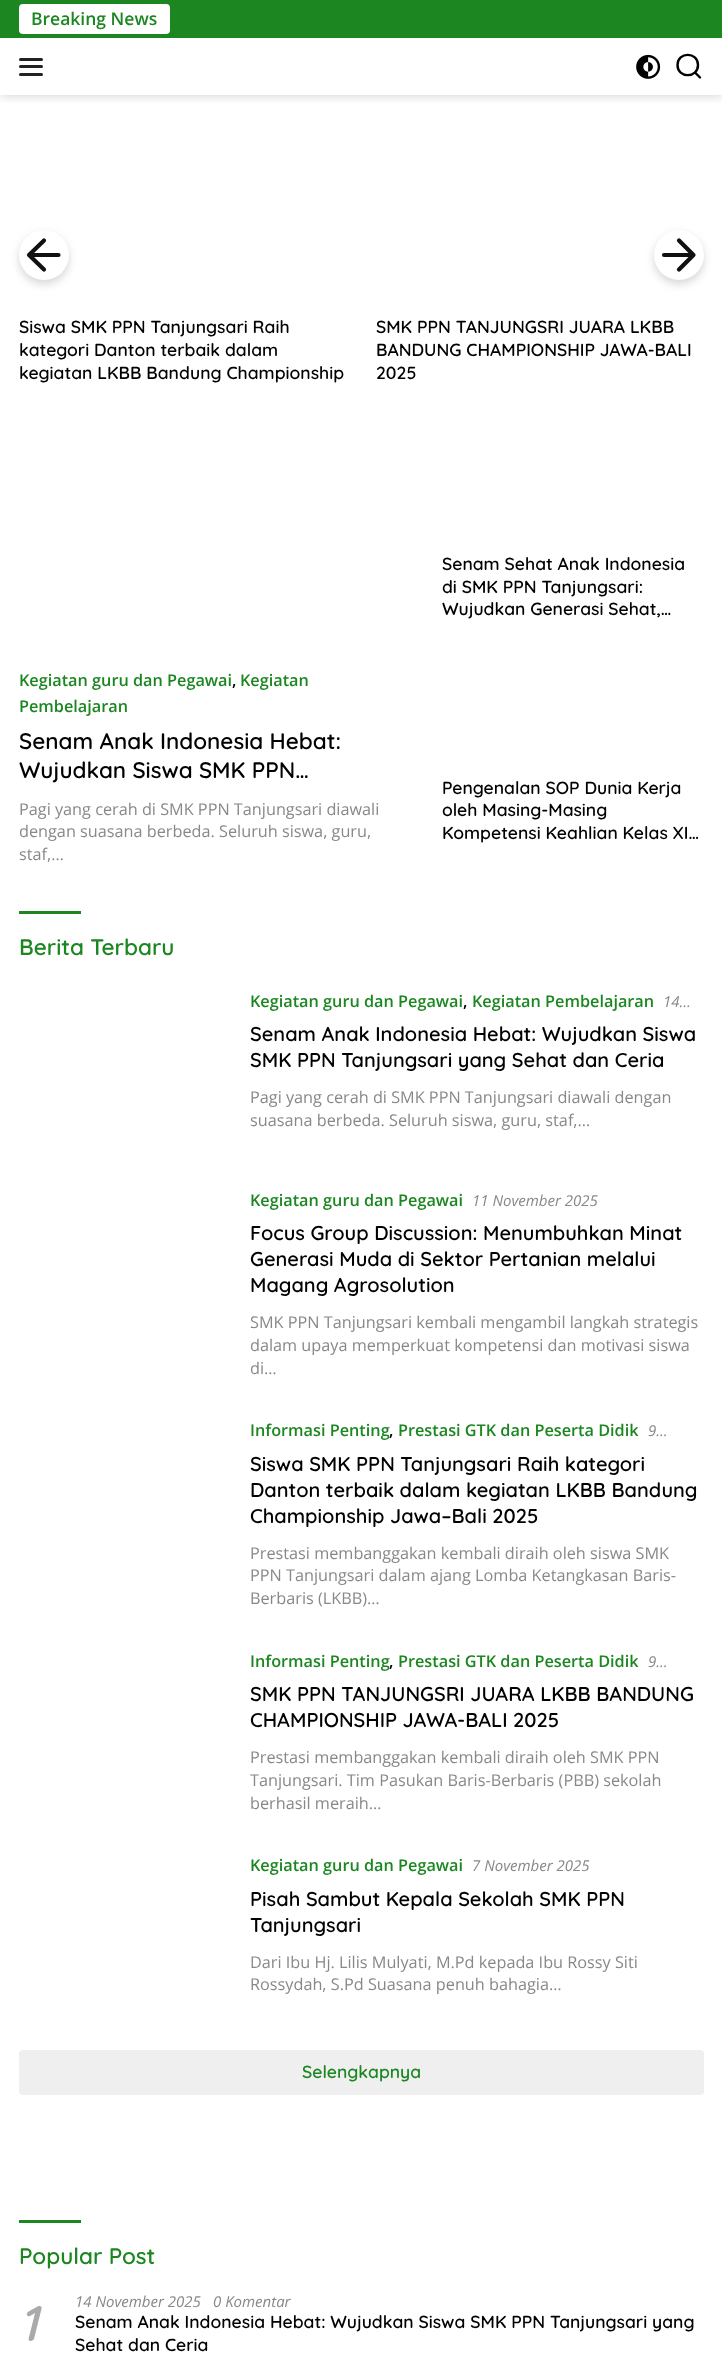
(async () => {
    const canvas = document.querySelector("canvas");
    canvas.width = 722;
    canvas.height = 2353;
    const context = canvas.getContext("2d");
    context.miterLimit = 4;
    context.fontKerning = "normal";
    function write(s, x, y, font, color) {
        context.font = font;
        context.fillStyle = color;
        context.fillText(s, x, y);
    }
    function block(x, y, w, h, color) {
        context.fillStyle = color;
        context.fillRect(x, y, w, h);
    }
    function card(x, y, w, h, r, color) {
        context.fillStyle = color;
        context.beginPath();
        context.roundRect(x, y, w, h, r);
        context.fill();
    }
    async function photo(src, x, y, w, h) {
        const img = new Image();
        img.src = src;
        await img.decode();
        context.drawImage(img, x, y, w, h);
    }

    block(0, 0, 722, 2353, "rgb(255, 255, 255)");
    context.save();
    context.beginPath();
    context.rect(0, 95, 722, 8);
    context.clip();
    context.fillStyle = "rgba(0, 0, 0, 0.2)";
    context.filter = "blur(6px)";
    context.beginPath();
    context.rect(0, 0, 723, 95);
    context.fill();
    context.filter = "none";
    context.restore();
    block(0, 0, 722, 38, "rgb(28, 135, 33)");
    card(19, 4, 151, 30, 4, "rgb(255, 255, 255)");
    write("Breaking News", 31, 25, "600 17.5px Open Sans", "rgb(28, 135, 33)");
    card(19, 58, 24, 3, 1.5, "rgb(34, 34, 34)");
    card(19, 65, 24, 3, 1.5, "rgb(34, 34, 34)");
    card(19, 73, 24, 3, 1.5, "rgb(34, 34, 34)");
    await photo("media/1.png", 636, 54, 25, 25);
    context.beginPath();
    context.moveTo(700, 77.5);
    context.lineTo(695, 72.5);
    context.moveTo(698, 65);
    context.bezierCurveTo(698, 78.5, 677.5, 78.5, 677.5, 65);
    context.bezierCurveTo(677.5, 51.5, 698, 51.5, 698, 65);
    context.closePath();
    context.strokeStyle = "rgb(0, 0, 0)";
    context.lineWidth = 2.4;
    context.lineCap = "round";
    context.stroke();
    context.fillStyle = "rgba(51, 51, 51, 0.2)";
    context.filter = "blur(4px)";
    context.beginPath();
    context.roundRect(19, 234, 50, 50, 25);
    context.fill();
    context.filter = "none";
    context.fillStyle = "rgb(255, 255, 255)";
    context.beginPath();
    context.arc(44, 255, 25, 0, Math.PI * 2);
    context.fill();
    context.beginPath();
    context.moveTo(58.5, 255);
    context.lineTo(29, 255);
    context.moveTo(44, 269.5);
    context.lineTo(29, 255);
    context.lineTo(44, 240.5);
    context.strokeStyle = "rgb(17, 17, 17)";
    context.lineWidth = 4.2;
    context.lineJoin = "round";
    context.stroke();
    context.fillStyle = "rgba(51, 51, 51, 0.2)";
    context.filter = "blur(4px)";
    context.beginPath();
    context.roundRect(654, 234, 50, 50, 25);
    context.fill();
    context.filter = "none";
    context.fillStyle = "rgb(255, 255, 255)";
    context.beginPath();
    context.arc(679, 255, 25, 0, Math.PI * 2);
    context.fill();
    context.beginPath();
    context.moveTo(664, 255);
    context.lineTo(693.5, 255);
    context.moveTo(679, 240.5);
    context.lineTo(693.5, 255);
    context.lineTo(679, 269.5);
    context.stroke();
    write("Siswa SMK PPN Tanjungsari Raih", 19, 333, "600 17.5px Quicksand", "rgb(0, 0, 0)");
    write("kategori Danton terbaik dalam", 19, 356, "600 17.5px Quicksand", "rgb(0, 0, 0)");
    write("kegiatan LKBB Bandung Championship", 19, 379, "600 17.5px Quicksand", "rgb(0, 0, 0)");
    write("SMK PPN TANJUNGSRI JUARA LKBB", 376, 333, "600 17.5px Quicksand", "rgb(0, 0, 0)");
    write("BANDUNG CHAMPIONSHIP JAWA-BALI", 376, 356, "600 17.5px Quicksand", "rgb(0, 0, 0)");
    write("2025", 376, 379, "600 17.5px Quicksand", "rgb(0, 0, 0)");
    write("Kegiatan guru dan Pegawai", 19, 686, "600 16.25px Open Sans", "rgb(28, 135, 33)");
    write(",", 232, 686, "600 16.25px Open Sans", "rgb(0, 0, 0)");
    write("Kegiatan", 240, 686, "600 16.25px Open Sans", "rgb(28, 135, 33)");
    write("Pembelajaran", 19, 712, "600 16.25px Open Sans", "rgb(28, 135, 33)");
    write("Senam Anak Indonesia Hebat:", 19, 749, "600 22.5px Quicksand", "rgb(0, 0, 0)");
    write("Wujudkan Siswa SMK PPN…", 19, 778, "600 22.5px Quicksand", "rgb(0, 0, 0)");
    write("Pagi yang cerah di SMK PPN Tanjungsari diawali", 19, 815, "16.25px Open Sans", "rgb(136, 136, 136)");
    write("dengan suasana berbeda. Seluruh siswa, guru,", 19, 837, "16.25px Open Sans", "rgb(136, 136, 136)");
    write("staf,…", 19, 860, "16.25px Open Sans", "rgb(136, 136, 136)");
    write("Senam Sehat Anak Indonesia", 442, 570, "600 17.5px Quicksand", "rgb(0, 0, 0)");
    write("di SMK PPN Tanjungsari:", 442, 593, "600 17.5px Quicksand", "rgb(0, 0, 0)");
    write("Wujudkan Generasi Sehat,…", 442, 615, "600 17.5px Quicksand", "rgb(0, 0, 0)");
    write("Pengenalan SOP Dunia Kerja", 442, 794, "600 17.5px Quicksand", "rgb(0, 0, 0)");
    write("oleh Masing-Masing", 442, 816, "600 17.5px Quicksand", "rgb(0, 0, 0)");
    write("Kompetensi Keahlian Kelas XI…", 442, 839, "600 17.5px Quicksand", "rgb(0, 0, 0)");
    block(19, 911, 62, 3, "rgb(28, 135, 33)");
    write("Berita Terbaru", 19, 955, "600 22.5px Quicksand", "rgb(28, 135, 33)");
    write("Kegiatan guru dan Pegawai", 250, 1007, "600 16.25px Open Sans", "rgb(28, 135, 33)");
    write(",", 463, 1007, "600 16.25px Open Sans", "rgb(0, 0, 0)");
    write("Kegiatan Pembelajaran", 472, 1007, "600 16.25px Open Sans", "rgb(28, 135, 33)");
    write("14…", 663, 1007, "italic 15px Open Sans", "rgb(136, 136, 136)");
    write("Senam Anak Indonesia Hebat: Wujudkan Siswa", 250, 1041, "600 20px Quicksand", "rgb(0, 0, 0)");
    write("SMK PPN Tanjungsari yang Sehat dan Ceria", 250, 1067, "600 20px Quicksand", "rgb(0, 0, 0)");
    write("Pagi yang cerah di SMK PPN Tanjungsari diawali dengan", 250, 1103, "16.25px Open Sans", "rgb(136, 136, 136)");
    write("suasana berbeda. Seluruh siswa, guru, staf,…", 250, 1126, "16.25px Open Sans", "rgb(136, 136, 136)");
    write("Kegiatan guru dan Pegawai", 250, 1206, "600 16.25px Open Sans", "rgb(28, 135, 33)");
    write("11 November 2025", 472, 1206, "italic 15px Open Sans", "rgb(136, 136, 136)");
    write("Focus Group Discussion: Menumbuhkan Minat", 250, 1240, "600 20px Quicksand", "rgb(0, 0, 0)");
    write("Generasi Muda di Sektor Pertanian melalui", 250, 1266, "600 20px Quicksand", "rgb(0, 0, 0)");
    write("Magang Agrosolution", 250, 1292, "600 20px Quicksand", "rgb(0, 0, 0)");
    write("SMK PPN Tanjungsari kembali mengambil langkah strategis", 250, 1328, "16.25px Open Sans", "rgb(136, 136, 136)");
    write("dalam upaya memperkuat kompetensi dan motivasi siswa", 250, 1351, "16.25px Open Sans", "rgb(136, 136, 136)");
    write("di…", 250, 1374, "16.25px Open Sans", "rgb(136, 136, 136)");
    write("Informasi Penting", 250, 1436, "600 16.25px Open Sans", "rgb(28, 135, 33)");
    write(",", 389, 1436, "600 16.25px Open Sans", "rgb(0, 0, 0)");
    write("Prestasi GTK dan Peserta Didik", 398, 1436, "600 16.25px Open Sans", "rgb(28, 135, 33)");
    write("9…", 648, 1436, "italic 15px Open Sans", "rgb(136, 136, 136)");
    write("Siswa SMK PPN Tanjungsari Raih kategori", 250, 1471, "600 20px Quicksand", "rgb(0, 0, 0)");
    write("Danton terbaik dalam kegiatan LKBB Bandung", 250, 1497, "600 20px Quicksand", "rgb(0, 0, 0)");
    write("Championship Jawa–Bali 2025", 250, 1523, "600 20px Quicksand", "rgb(0, 0, 0)");
    write("Prestasi membanggakan kembali diraih oleh siswa SMK", 250, 1559, "16.25px Open Sans", "rgb(136, 136, 136)");
    write("PPN Tanjungsari dalam ajang Lomba Ketangkasan Baris-", 250, 1581, "16.25px Open Sans", "rgb(136, 136, 136)");
    write("Berbaris (LKBB)…", 250, 1604, "16.25px Open Sans", "rgb(136, 136, 136)");
    write("Informasi Penting", 250, 1667, "600 16.25px Open Sans", "rgb(28, 135, 33)");
    write(",", 389, 1667, "600 16.25px Open Sans", "rgb(0, 0, 0)");
    write("Prestasi GTK dan Peserta Didik", 398, 1667, "600 16.25px Open Sans", "rgb(28, 135, 33)");
    write("9…", 648, 1667, "italic 15px Open Sans", "rgb(136, 136, 136)");
    write("SMK PPN TANJUNGSRI JUARA LKBB BANDUNG", 250, 1701, "600 20px Quicksand", "rgb(0, 0, 0)");
    write("CHAMPIONSHIP JAWA-BALI 2025", 250, 1727, "600 20px Quicksand", "rgb(0, 0, 0)");
    write("Prestasi membanggakan kembali diraih oleh SMK PPN", 250, 1763, "16.25px Open Sans", "rgb(136, 136, 136)");
    write("Tanjungsari. Tim Pasukan Baris-Berbaris (PBB) sekolah", 250, 1786, "16.25px Open Sans", "rgb(136, 136, 136)");
    write("berhasil meraih…", 250, 1809, "16.25px Open Sans", "rgb(136, 136, 136)");
    write("Kegiatan guru dan Pegawai", 250, 1871, "600 16.25px Open Sans", "rgb(28, 135, 33)");
    write("7 November 2025", 472, 1871, "italic 15px Open Sans", "rgb(136, 136, 136)");
    write("Pisah Sambut Kepala Sekolah SMK PPN", 250, 1906, "600 20px Quicksand", "rgb(0, 0, 0)");
    write("Tanjungsari", 250, 1932, "600 20px Quicksand", "rgb(0, 0, 0)");
    write("Dari Ibu Hj. Lilis Mulyati, M.Pd kepada Ibu Rossy Siti", 250, 1968, "16.25px Open Sans", "rgb(136, 136, 136)");
    write("Rossydah, S.Pd Suasana penuh bahagia…", 250, 1990, "16.25px Open Sans", "rgb(136, 136, 136)");
    card(19, 2050, 685, 45, 4, "rgb(239, 239, 239)");
    write("Selengkapnya", 302, 2078, "600 17.5px Quicksand", "rgb(28, 135, 33)");
    block(19, 2220, 62, 3, "rgb(28, 135, 33)");
    write("Popular Post", 19, 2264, "600 22.5px Quicksand", "rgb(28, 135, 33)");
    write("1", 19, 2341, "italic 600 50px Quicksand", "rgb(170, 170, 170)");
    write("14 November 2025", 75, 2307, "italic 15px Open Sans", "rgb(136, 136, 136)");
    write("0 Komentar", 213, 2307, "italic 15px Open Sans", "rgb(136, 136, 136)");
    write("Senam Anak Indonesia Hebat: Wujudkan Siswa SMK PPN Tanjungsari yang", 75, 2328, "600 17.5px Quicksand", "rgb(0, 0, 0)");
    write("Sehat dan Ceria", 75, 2351, "600 17.5px Quicksand", "rgb(0, 0, 0)");
})();
